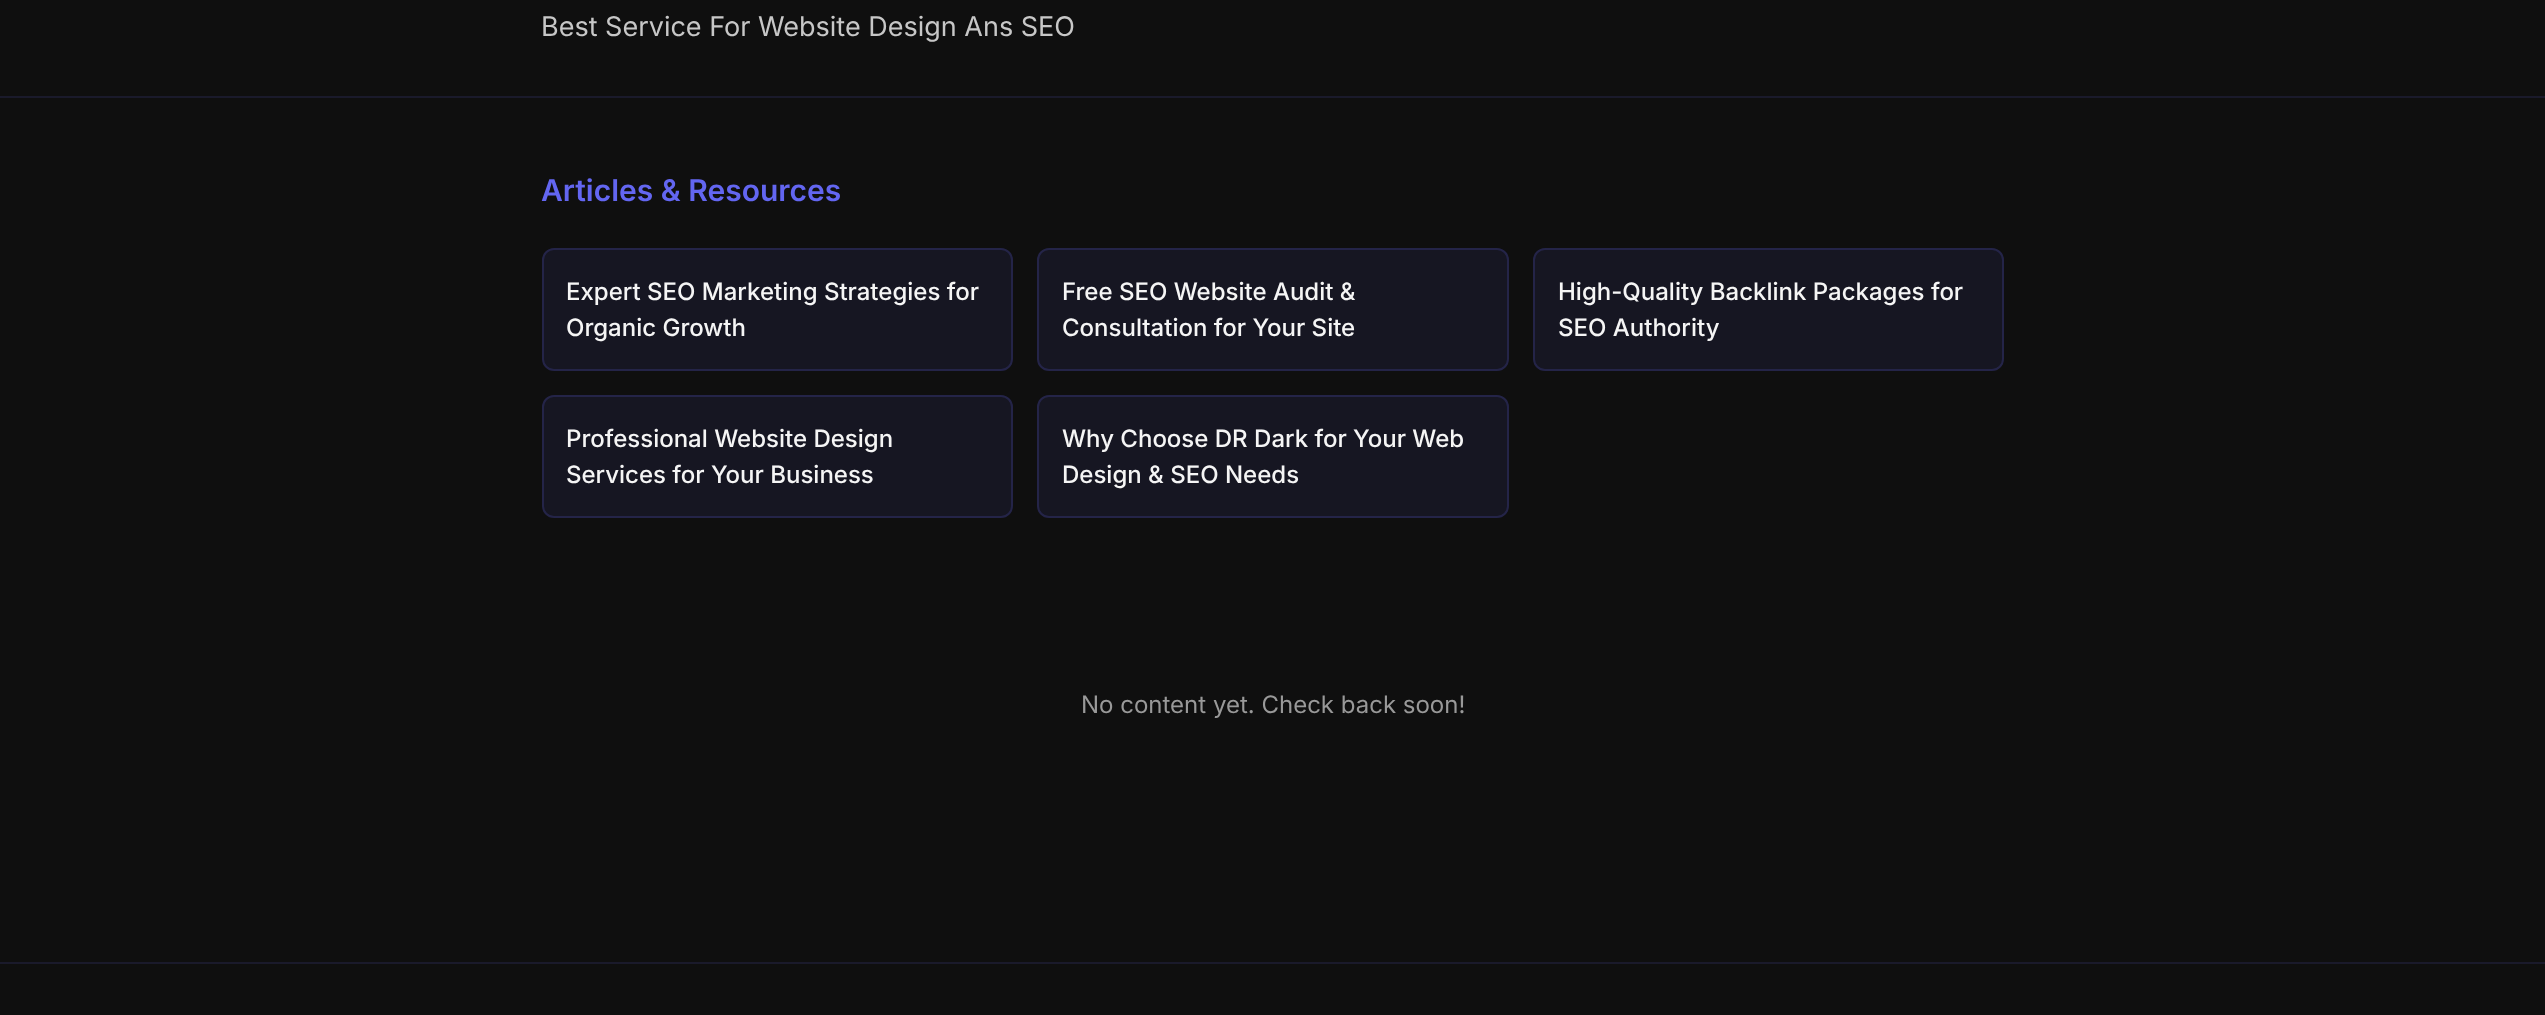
(async () => {
    const canvas = document.querySelector("canvas");
    canvas.width = 2545;
    canvas.height = 1015;
    const context = canvas.getContext("2d");
    context.miterLimit = 4;
    context.fontKerning = "normal";
    function write(s, x, y, font, color) {
        context.font = font;
        context.fillStyle = color;
        context.fillText(s, x, y);
    }
    function block(x, y, w, h, color) {
        context.fillStyle = color;
        context.fillRect(x, y, w, h);
    }
    function card(x, y, w, h, r, color) {
        context.fillStyle = color;
        context.beginPath();
        context.roundRect(x, y, w, h, r);
        context.fill();
    }

    block(0, 0, 2545, 1015, "rgb(15, 15, 15)");
    block(0, 96, 2545, 2, "rgb(26, 26, 43)");
    write("Best Service For Website Design Ans SEO", 541, 36, "27px Inter", "rgb(199, 199, 199)");
    write("Articles & Resources", 541, 201, "600 30px Inter", "rgb(99, 102, 241)");
    card(542, 248, 471, 123, 12, "rgb(22, 22, 34)");
    context.beginPath();
    context.roundRect(543, 249, 469, 121, 11);
    context.strokeStyle = "rgba(99, 102, 241, 0.19)";
    context.lineWidth = 2;
    context.stroke();
    write("Expert SEO Marketing Strategies for", 566, 300, "500 24px Inter", "rgb(245, 245, 245)");
    write("Organic Growth", 566, 336, "500 24px Inter", "rgb(245, 245, 245)");
    card(1037, 248, 472, 123, 12, "rgb(22, 22, 34)");
    context.beginPath();
    context.roundRect(1038, 249, 470, 121, 11);
    context.stroke();
    write("Free SEO Website Audit &", 1062, 300, "500 24px Inter", "rgb(245, 245, 245)");
    write("Consultation for Your Site", 1062, 336, "500 24px Inter", "rgb(245, 245, 245)");
    card(1533, 248, 471, 123, 12, "rgb(22, 22, 34)");
    context.beginPath();
    context.roundRect(1534, 249, 469, 121, 11);
    context.stroke();
    write("High-Quality Backlink Packages for", 1558, 300, "500 24px Inter", "rgb(245, 245, 245)");
    write("SEO Authority", 1558, 336, "500 24px Inter", "rgb(245, 245, 245)");
    card(542, 395, 471, 123, 12, "rgb(22, 22, 34)");
    context.beginPath();
    context.roundRect(543, 396, 469, 121, 11);
    context.stroke();
    write("Professional Website Design", 566, 447, "500 24px Inter", "rgb(245, 245, 245)");
    write("Services for Your Business", 566, 483, "500 24px Inter", "rgb(245, 245, 245)");
    card(1037, 395, 472, 123, 12, "rgb(22, 22, 34)");
    context.beginPath();
    context.roundRect(1038, 396, 470, 121, 11);
    context.stroke();
    write("Why Choose DR Dark for Your Web", 1062, 447, "500 24px Inter", "rgb(245, 245, 245)");
    write("Design & SEO Needs", 1062, 483, "500 24px Inter", "rgb(245, 245, 245)");
    write("No content yet. Check back soon!", 1081, 713, "24px Inter", "rgb(153, 153, 153)");
    block(0, 962, 2545, 2, "rgb(26, 26, 43)");
})();
